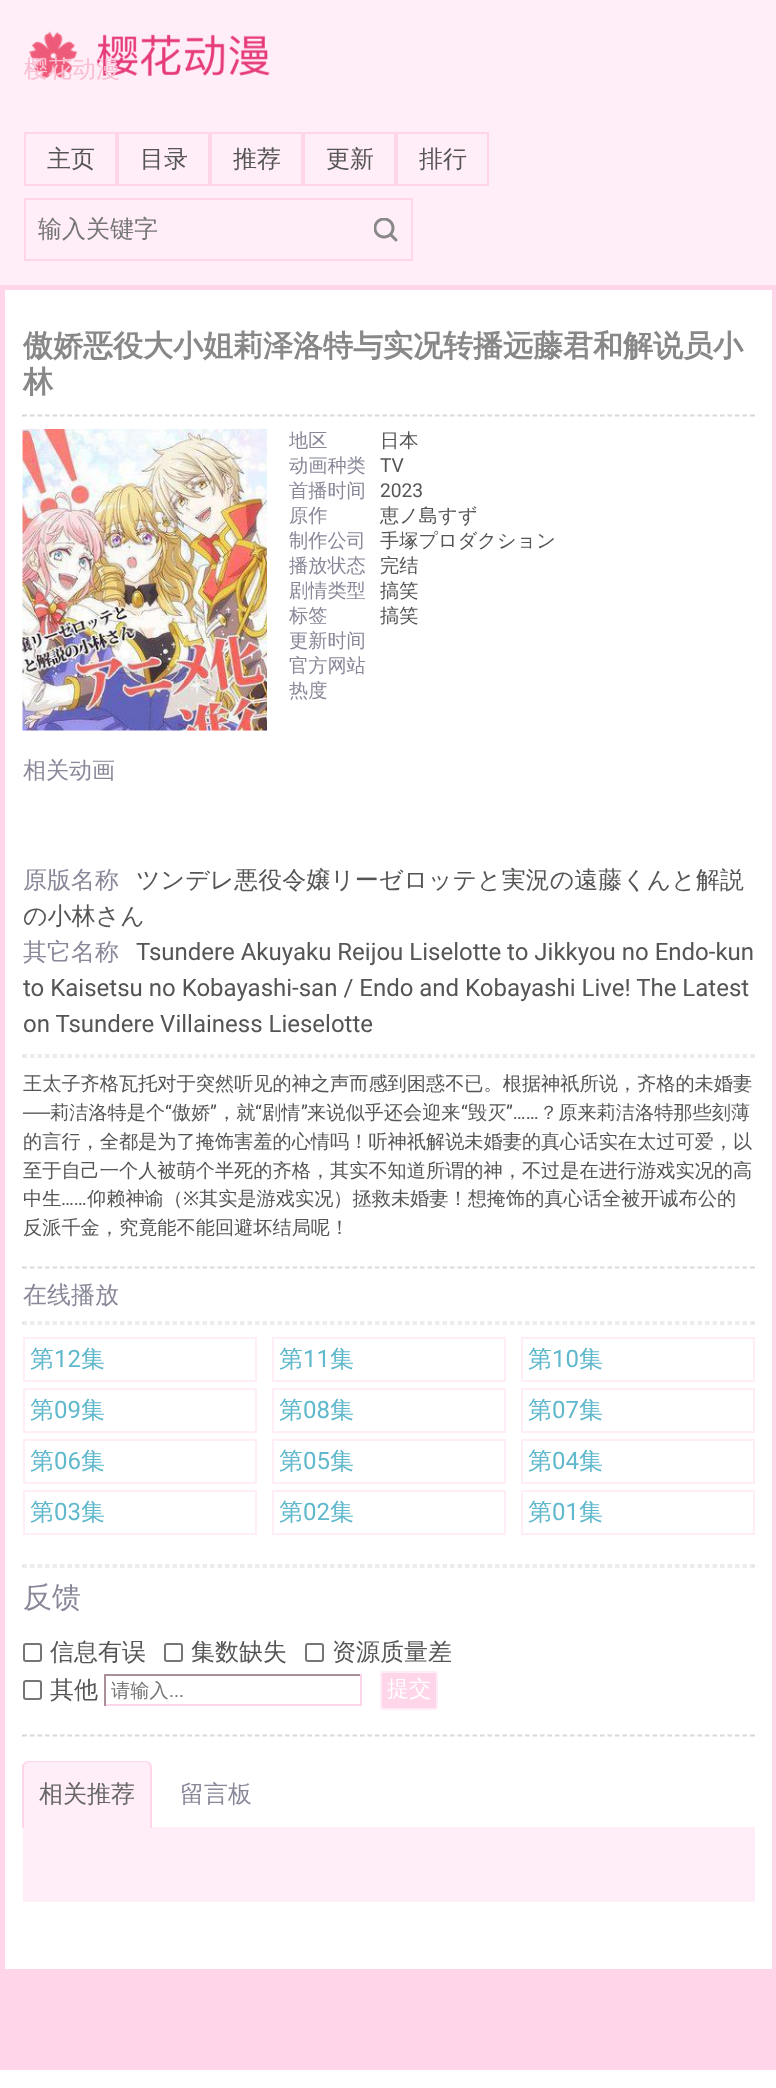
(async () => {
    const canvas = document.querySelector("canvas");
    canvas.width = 776;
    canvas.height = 2088;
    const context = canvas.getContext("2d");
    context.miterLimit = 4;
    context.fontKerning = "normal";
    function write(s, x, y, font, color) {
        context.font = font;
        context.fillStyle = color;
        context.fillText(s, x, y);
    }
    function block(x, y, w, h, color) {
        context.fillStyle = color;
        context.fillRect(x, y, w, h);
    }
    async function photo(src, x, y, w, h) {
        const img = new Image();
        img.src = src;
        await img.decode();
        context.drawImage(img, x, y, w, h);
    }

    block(0, 0, 776, 2088, "rgb(255, 255, 255)");
    block(0, 0, 776, 285, "rgb(255, 237, 248)");
    await photo("media/1.png", 29, 31, 241, 47);
    write("樱花动漫", 24, 77, "500 24px WenQuanYi Zen Hei", "rgb(249, 190, 209)");
    context.strokeStyle = "rgb(255, 214, 233)";
    context.lineWidth = 2;
    context.strokeRect(25, 133, 91, 52);
    write("主页", 47, 167, "500 24px WenQuanYi Zen Hei", "rgb(85, 85, 85)");
    context.strokeRect(118, 133, 91, 52);
    write("目录", 140, 167, "500 24px WenQuanYi Zen Hei", "rgb(85, 85, 85)");
    context.strokeRect(211, 133, 91, 52);
    write("推荐", 233, 167, "500 24px WenQuanYi Zen Hei", "rgb(85, 85, 85)");
    context.strokeRect(304, 133, 91, 52);
    write("更新", 326, 167, "500 24px WenQuanYi Zen Hei", "rgb(85, 85, 85)");
    context.strokeRect(397, 133, 91, 52);
    write("排行", 419, 167, "500 24px WenQuanYi Zen Hei", "rgb(85, 85, 85)");
    context.strokeRect(25, 199, 387, 61);
    context.save();
    context.beginPath();
    context.rect(38, 215, 288, 31);
    context.clip();
    write("输入关键字", 38, 237, "500 24px WenQuanYi Zen Hei", "rgb(117, 117, 117)");
    context.restore();
    await photo("media/2.png", 374, 218, 24, 24);
    context.beginPath();
    context.moveTo(22.5, 415);
    context.lineTo(754.5, 415);
    context.strokeStyle = "rgb(230, 230, 230)";
    context.lineWidth = 1.5;
    context.setLineDash([4.5, 3]);
    context.stroke();
    context.fillStyle = "rgba(0, 0, 0, 0.1)";
    context.beginPath();
    context.moveTo(754.5, 414);
    context.lineTo(754.5, 417);
    context.lineTo(753, 415.5);
    context.closePath();
    context.fill();
    context.beginPath();
    context.moveTo(22.5, 416);
    context.lineTo(754.5, 416);
    context.strokeStyle = "rgba(0, 0, 0, 0.1)";
    context.stroke();
    context.beginPath();
    context.moveTo(22.5, 417);
    context.lineTo(22.5, 414);
    context.lineTo(24, 415.5);
    context.closePath();
    context.fill();
    await photo("media/3.png", 22, 429, 245, 302);
    context.beginPath();
    context.moveTo(22.5, 1055);
    context.lineTo(754.5, 1055);
    context.strokeStyle = "rgb(230, 230, 230)";
    context.stroke();
    context.beginPath();
    context.moveTo(754.5, 1054.5);
    context.lineTo(754.5, 1057.5);
    context.lineTo(753, 1056);
    context.closePath();
    context.fill();
    context.beginPath();
    context.moveTo(22.5, 1057);
    context.lineTo(754.5, 1057);
    context.strokeStyle = "rgba(0, 0, 0, 0.1)";
    context.stroke();
    context.beginPath();
    context.moveTo(22.5, 1057.5);
    context.lineTo(22.5, 1054.5);
    context.lineTo(24, 1056);
    context.closePath();
    context.fill();
    context.beginPath();
    context.moveTo(22.5, 1267);
    context.lineTo(754.5, 1267);
    context.strokeStyle = "rgb(230, 230, 230)";
    context.stroke();
    context.beginPath();
    context.moveTo(754.5, 1266);
    context.lineTo(754.5, 1269);
    context.lineTo(753, 1267.5);
    context.closePath();
    context.fill();
    context.beginPath();
    context.moveTo(22.5, 1268);
    context.lineTo(754.5, 1268);
    context.strokeStyle = "rgba(0, 0, 0, 0.1)";
    context.stroke();
    context.beginPath();
    context.moveTo(22.5, 1269);
    context.lineTo(22.5, 1266);
    context.lineTo(24, 1267.5);
    context.closePath();
    context.fill();
    context.beginPath();
    context.moveTo(22.5, 1322);
    context.lineTo(754.5, 1322);
    context.strokeStyle = "rgb(230, 230, 230)";
    context.stroke();
    context.beginPath();
    context.moveTo(754.5, 1321.5);
    context.lineTo(754.5, 1324.5);
    context.lineTo(753, 1323);
    context.closePath();
    context.fill();
    context.beginPath();
    context.moveTo(22.5, 1324);
    context.lineTo(754.5, 1324);
    context.strokeStyle = "rgba(0, 0, 0, 0.1)";
    context.stroke();
    context.beginPath();
    context.moveTo(22.5, 1324.5);
    context.lineTo(22.5, 1321.5);
    context.lineTo(24, 1323);
    context.closePath();
    context.fill();
    context.strokeStyle = "rgb(255, 237, 248)";
    context.lineWidth = 2;
    context.setLineDash([]);
    context.strokeRect(24, 1338, 232, 43);
    context.strokeRect(273, 1338, 232, 43);
    context.strokeRect(522, 1338, 232, 43);
    context.strokeRect(24, 1389, 232, 43);
    context.strokeRect(273, 1389, 232, 43);
    context.strokeRect(522, 1389, 232, 43);
    context.strokeRect(24, 1440, 232, 43);
    context.strokeRect(273, 1440, 232, 43);
    context.strokeRect(522, 1440, 232, 43);
    context.strokeRect(24, 1491, 232, 43);
    context.strokeRect(273, 1491, 232, 43);
    context.strokeRect(522, 1491, 232, 43);
    context.beginPath();
    context.moveTo(22.5, 1565);
    context.lineTo(754.5, 1565);
    context.strokeStyle = "rgb(230, 230, 230)";
    context.lineWidth = 1.5;
    context.setLineDash([4.5, 3]);
    context.stroke();
    context.beginPath();
    context.moveTo(754.5, 1564.5);
    context.lineTo(754.5, 1567.5);
    context.lineTo(753, 1566);
    context.closePath();
    context.fill();
    context.beginPath();
    context.moveTo(22.5, 1567);
    context.lineTo(754.5, 1567);
    context.strokeStyle = "rgba(0, 0, 0, 0.1)";
    context.stroke();
    context.beginPath();
    context.moveTo(22.5, 1567.5);
    context.lineTo(22.5, 1564.5);
    context.lineTo(24, 1566);
    context.closePath();
    context.fill();
    context.beginPath();
    context.roundRect(24, 1644, 17, 17, 2);
    context.strokeStyle = "rgb(118, 118, 118)";
    context.lineWidth = 2;
    context.setLineDash([]);
    context.stroke();
    context.beginPath();
    context.roundRect(165, 1644, 17, 17, 2);
    context.stroke();
    context.beginPath();
    context.roundRect(306, 1644, 17, 17, 2);
    context.stroke();
    context.beginPath();
    context.roundRect(24, 1681, 17, 18, 2);
    context.stroke();
    block(104, 1674, 258, 2, "rgb(170, 143, 155)");
    block(360, 1674, 2, 32, "rgb(255, 214, 233)");
    block(104, 1704, 258, 2, "rgb(255, 214, 233)");
    block(104, 1674, 2, 32, "rgb(170, 143, 155)");
    context.fillStyle = "rgb(255, 214, 233)";
    context.beginPath();
    context.roundRect(381, 1672, 56, 37, 2);
    context.fill();
    context.strokeStyle = "rgb(255, 237, 248)";
    context.stroke();
    context.beginPath();
    context.moveTo(22.5, 1735);
    context.lineTo(754.5, 1735);
    context.strokeStyle = "rgb(230, 230, 230)";
    context.lineWidth = 1.5;
    context.setLineDash([4.5, 3]);
    context.stroke();
    context.fillStyle = "rgba(0, 0, 0, 0.1)";
    context.beginPath();
    context.moveTo(754.5, 1734);
    context.lineTo(754.5, 1737);
    context.lineTo(753, 1735.5);
    context.closePath();
    context.fill();
    context.beginPath();
    context.moveTo(22.5, 1736);
    context.lineTo(754.5, 1736);
    context.strokeStyle = "rgba(0, 0, 0, 0.1)";
    context.stroke();
    context.beginPath();
    context.moveTo(22.5, 1737);
    context.lineTo(22.5, 1734);
    context.lineTo(24, 1735.5);
    context.closePath();
    context.fill();
    block(23, 1827, 732, 75, "rgb(255, 237, 248)");
    context.beginPath();
    context.roundRect(23, 1761, 129, 68, [6, 6, 0, 0]);
    context.fill();
    context.fillStyle = "rgb(255, 214, 233)";
    context.beginPath();
    context.moveTo(28, 1761);
    context.lineTo(146, 1761);
    context.bezierCurveTo(149, 1761, 152, 1764, 152, 1767);
    context.lineTo(152, 1828);
    context.lineTo(22, 1828);
    context.lineTo(22, 1767);
    context.bezierCurveTo(22, 1764, 25, 1761, 28, 1761);
    context.closePath();
    context.moveTo(28, 1762);
    context.lineTo(146, 1762);
    context.bezierCurveTo(148, 1762, 150, 1765, 150, 1767);
    context.lineTo(150, 1828);
    context.lineTo(24, 1828);
    context.lineTo(24, 1767);
    context.bezierCurveTo(24, 1765, 26, 1762, 28, 1762);
    context.closePath();
    context.fill("evenodd");
    context.strokeStyle = "rgb(255, 214, 233)";
    context.lineWidth = 5;
    context.setLineDash([]);
    context.strokeRect(2.5, 287.5, 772, 1684);
    write("傲娇恶役大小姐莉泽洛特与实况转播远藤君和解说员小", 23, 356, "bold 30px WenQuanYi Zen Hei", "rgb(136, 136, 136)");
    write("林", 23, 392, "bold 30px WenQuanYi Zen Hei", "rgb(136, 136, 136)");
    write("地区", 289, 447, "500 19.2px WenQuanYi Zen Hei", "rgb(136, 136, 153)");
    write("日本", 380, 447, "500 19.2px WenQuanYi Zen Hei", "rgb(85, 85, 85)");
    write("动画种类", 289, 472, "500 19.2px WenQuanYi Zen Hei", "rgb(136, 136, 153)");
    write("TV", 380, 472, "19.2px Roboto", "rgb(85, 85, 85)");
    write("首播时间", 289, 497, "500 19.2px WenQuanYi Zen Hei", "rgb(136, 136, 153)");
    write("2023", 380, 497, "19.2px Roboto", "rgb(85, 85, 85)");
    write("原作", 289, 522, "500 19.2px WenQuanYi Zen Hei", "rgb(136, 136, 153)");
    write("恵ノ島すず", 380, 522, "500 19.2px WenQuanYi Zen Hei", "rgb(85, 85, 85)");
    write("制作公司", 289, 547, "500 19.2px WenQuanYi Zen Hei", "rgb(136, 136, 153)");
    write("手塚プロダクション", 380, 547, "500 19.2px WenQuanYi Zen Hei", "rgb(85, 85, 85)");
    write("播放状态", 289, 572, "500 19.2px WenQuanYi Zen Hei", "rgb(136, 136, 153)");
    write("完结", 380, 572, "500 19.2px WenQuanYi Zen Hei", "rgb(85, 85, 85)");
    write("剧情类型", 289, 597, "500 19.2px WenQuanYi Zen Hei", "rgb(136, 136, 153)");
    write("搞笑", 380, 597, "500 19.2px WenQuanYi Zen Hei", "rgb(85, 85, 85)");
    write("标签", 289, 622, "500 19.2px WenQuanYi Zen Hei", "rgb(136, 136, 153)");
    write("搞笑", 380, 622, "500 19.2px WenQuanYi Zen Hei", "rgb(85, 85, 85)");
    write("更新时间", 289, 647, "500 19.2px WenQuanYi Zen Hei", "rgb(136, 136, 153)");
    write("官方网站", 289, 672, "500 19.2px WenQuanYi Zen Hei", "rgb(136, 136, 153)");
    write("热度", 289, 697, "500 19.2px WenQuanYi Zen Hei", "rgb(136, 136, 153)");
    write("相关动画", 23, 778, "500 23px WenQuanYi Zen Hei", "rgb(136, 136, 153)");
    write("原版名称", 23, 888, "500 24px WenQuanYi Zen Hei", "rgb(136, 136, 153)");
    write("ツンデレ悪役令嬢リーゼロッテと実況の遠藤くんと解説", 136, 888, "500 24px WenQuanYi Zen Hei", "rgb(85, 85, 85)");
    write("の小林さん", 23, 924, "500 24px WenQuanYi Zen Hei", "rgb(85, 85, 85)");
    write("其它名称", 23, 960, "500 24px WenQuanYi Zen Hei", "rgb(136, 136, 153)");
    write("Tsundere Akuyaku Reijou Liselotte to Jikkyou no Endo-kun", 136, 960, "24px Roboto", "rgb(85, 85, 85)");
    write("to Kaisetsu no Kobayashi-san / Endo and Kobayashi Live! The Latest", 23, 996, "24px Roboto", "rgb(85, 85, 85)");
    write("on Tsundere Villainess Lieselotte", 23, 1032, "24px Roboto", "rgb(85, 85, 85)");
    write("王太子齐格瓦托对于突然听见的神之声而感到困惑不已。根据神祇所说，齐格的未婚妻", 23, 1090, "500 19.2px WenQuanYi Zen Hei", "rgb(85, 85, 85)");
    write("──", 23, 1119, "19.2px Liberation Sans", "rgb(85, 85, 85)");
    write("莉洁洛特是个", 50, 1119, "500 19.2px WenQuanYi Zen Hei", "rgb(85, 85, 85)");
    write("“", 165, 1119, "19.2px Roboto", "rgb(85, 85, 85)");
    write("傲娇", 172, 1119, "500 19.2px WenQuanYi Zen Hei", "rgb(85, 85, 85)");
    write("”", 210, 1119, "19.2px Roboto", "rgb(85, 85, 85)");
    write("，就", 217, 1119, "500 19.2px WenQuanYi Zen Hei", "rgb(85, 85, 85)");
    write("“", 255, 1119, "19.2px Roboto", "rgb(85, 85, 85)");
    write("剧情", 262, 1119, "500 19.2px WenQuanYi Zen Hei", "rgb(85, 85, 85)");
    write("”", 301, 1119, "19.2px Roboto", "rgb(85, 85, 85)");
    write("来说似乎还会迎来", 307, 1119, "500 19.2px WenQuanYi Zen Hei", "rgb(85, 85, 85)");
    write("“", 461, 1119, "19.2px Roboto", "rgb(85, 85, 85)");
    write("毁灭", 468, 1119, "500 19.2px WenQuanYi Zen Hei", "rgb(85, 85, 85)");
    write("”……", 506, 1119, "19.2px Roboto", "rgb(85, 85, 85)");
    write("？原来莉洁洛特那些刻薄", 539, 1119, "500 19.2px WenQuanYi Zen Hei", "rgb(85, 85, 85)");
    write("的言行，全都是为了掩饰害羞的心情吗！听神祇解说未婚妻的真心话实在太过可爱，以", 23, 1148, "500 19.2px WenQuanYi Zen Hei", "rgb(85, 85, 85)");
    write("至于自己一个人被萌个半死的齐格，其实不知道所谓的神，不过是在进行游戏实况的高", 23, 1177, "500 19.2px WenQuanYi Zen Hei", "rgb(85, 85, 85)");
    write("中生", 23, 1205, "500 19.2px WenQuanYi Zen Hei", "rgb(85, 85, 85)");
    write("……", 61, 1205, "19.2px Roboto", "rgb(85, 85, 85)");
    write("仰赖神谕（", 87, 1205, "500 19.2px WenQuanYi Zen Hei", "rgb(85, 85, 85)");
    write("※", 183, 1205, "19.2px Noto Sans", "rgb(85, 85, 85)");
    write("其实是游戏实况）拯救未婚妻！想掩饰的真心话全被开诚布公的", 199, 1205, "500 19.2px WenQuanYi Zen Hei", "rgb(85, 85, 85)");
    write("反派千金，究竟能不能回避坏结局呢！", 23, 1234, "500 19.2px WenQuanYi Zen Hei", "rgb(85, 85, 85)");
    write("在线播放", 23, 1303, "500 24px WenQuanYi Zen Hei", "rgb(136, 136, 153)");
    write("第", 30, 1367, "500 24px WenQuanYi Zen Hei", "rgb(96, 184, 204)");
    write("12", 54, 1367, "24px Roboto", "rgb(96, 184, 204)");
    write("集", 81, 1367, "500 24px WenQuanYi Zen Hei", "rgb(96, 184, 204)");
    write("第", 279, 1367, "500 24px WenQuanYi Zen Hei", "rgb(96, 184, 204)");
    write("11", 303, 1367, "24px Roboto", "rgb(96, 184, 204)");
    write("集", 330, 1367, "500 24px WenQuanYi Zen Hei", "rgb(96, 184, 204)");
    write("第", 528, 1367, "500 24px WenQuanYi Zen Hei", "rgb(96, 184, 204)");
    write("10", 552, 1367, "24px Roboto", "rgb(96, 184, 204)");
    write("集", 579, 1367, "500 24px WenQuanYi Zen Hei", "rgb(96, 184, 204)");
    write("第", 30, 1418, "500 24px WenQuanYi Zen Hei", "rgb(96, 184, 204)");
    write("09", 54, 1418, "24px Roboto", "rgb(96, 184, 204)");
    write("集", 81, 1418, "500 24px WenQuanYi Zen Hei", "rgb(96, 184, 204)");
    write("第", 279, 1418, "500 24px WenQuanYi Zen Hei", "rgb(96, 184, 204)");
    write("08", 303, 1418, "24px Roboto", "rgb(96, 184, 204)");
    write("集", 330, 1418, "500 24px WenQuanYi Zen Hei", "rgb(96, 184, 204)");
    write("第", 528, 1418, "500 24px WenQuanYi Zen Hei", "rgb(96, 184, 204)");
    write("07", 552, 1418, "24px Roboto", "rgb(96, 184, 204)");
    write("集", 579, 1418, "500 24px WenQuanYi Zen Hei", "rgb(96, 184, 204)");
    write("第", 30, 1469, "500 24px WenQuanYi Zen Hei", "rgb(96, 184, 204)");
    write("06", 54, 1469, "24px Roboto", "rgb(96, 184, 204)");
    write("集", 81, 1469, "500 24px WenQuanYi Zen Hei", "rgb(96, 184, 204)");
    write("第", 279, 1469, "500 24px WenQuanYi Zen Hei", "rgb(96, 184, 204)");
    write("05", 303, 1469, "24px Roboto", "rgb(96, 184, 204)");
    write("集", 330, 1469, "500 24px WenQuanYi Zen Hei", "rgb(96, 184, 204)");
    write("第", 528, 1469, "500 24px WenQuanYi Zen Hei", "rgb(96, 184, 204)");
    write("04", 552, 1469, "24px Roboto", "rgb(96, 184, 204)");
    write("集", 579, 1469, "500 24px WenQuanYi Zen Hei", "rgb(96, 184, 204)");
    write("第", 30, 1520, "500 24px WenQuanYi Zen Hei", "rgb(96, 184, 204)");
    write("03", 54, 1520, "24px Roboto", "rgb(96, 184, 204)");
    write("集", 81, 1520, "500 24px WenQuanYi Zen Hei", "rgb(96, 184, 204)");
    write("第", 279, 1520, "500 24px WenQuanYi Zen Hei", "rgb(96, 184, 204)");
    write("02", 303, 1520, "24px Roboto", "rgb(96, 184, 204)");
    write("集", 330, 1520, "500 24px WenQuanYi Zen Hei", "rgb(96, 184, 204)");
    write("第", 528, 1520, "500 24px WenQuanYi Zen Hei", "rgb(96, 184, 204)");
    write("01", 552, 1520, "24px Roboto", "rgb(96, 184, 204)");
    write("集", 579, 1520, "500 24px WenQuanYi Zen Hei", "rgb(96, 184, 204)");
    write("反馈", 23, 1607, "500 29px WenQuanYi Zen Hei", "rgb(136, 136, 153)");
    write("信息有误", 50, 1660, "500 24px WenQuanYi Zen Hei", "rgb(85, 85, 85)");
    write("集数缺失", 191, 1660, "500 24px WenQuanYi Zen Hei", "rgb(85, 85, 85)");
    write("资源质量差", 332, 1660, "500 24px WenQuanYi Zen Hei", "rgb(85, 85, 85)");
    write("其他", 50, 1698, "500 24px WenQuanYi Zen Hei", "rgb(85, 85, 85)");
    write("请输入", 111, 1697, "500 19.2px WenQuanYi Zen Hei", "rgb(117, 117, 117)");
    write("...", 169, 1697, "19.2px Roboto", "rgb(117, 117, 117)");
    write("提交", 387, 1696, "500 22px WenQuanYi Zen Hei", "rgb(255, 255, 255)");
    write("相关推荐", 39, 1802, "500 24px WenQuanYi Zen Hei", "rgb(102, 102, 102)");
    write("留言板", 180, 1802, "500 24px WenQuanYi Zen Hei", "rgb(136, 136, 153)");
    block(0, 1974, 776, 96, "rgb(255, 214, 233)");
})();
